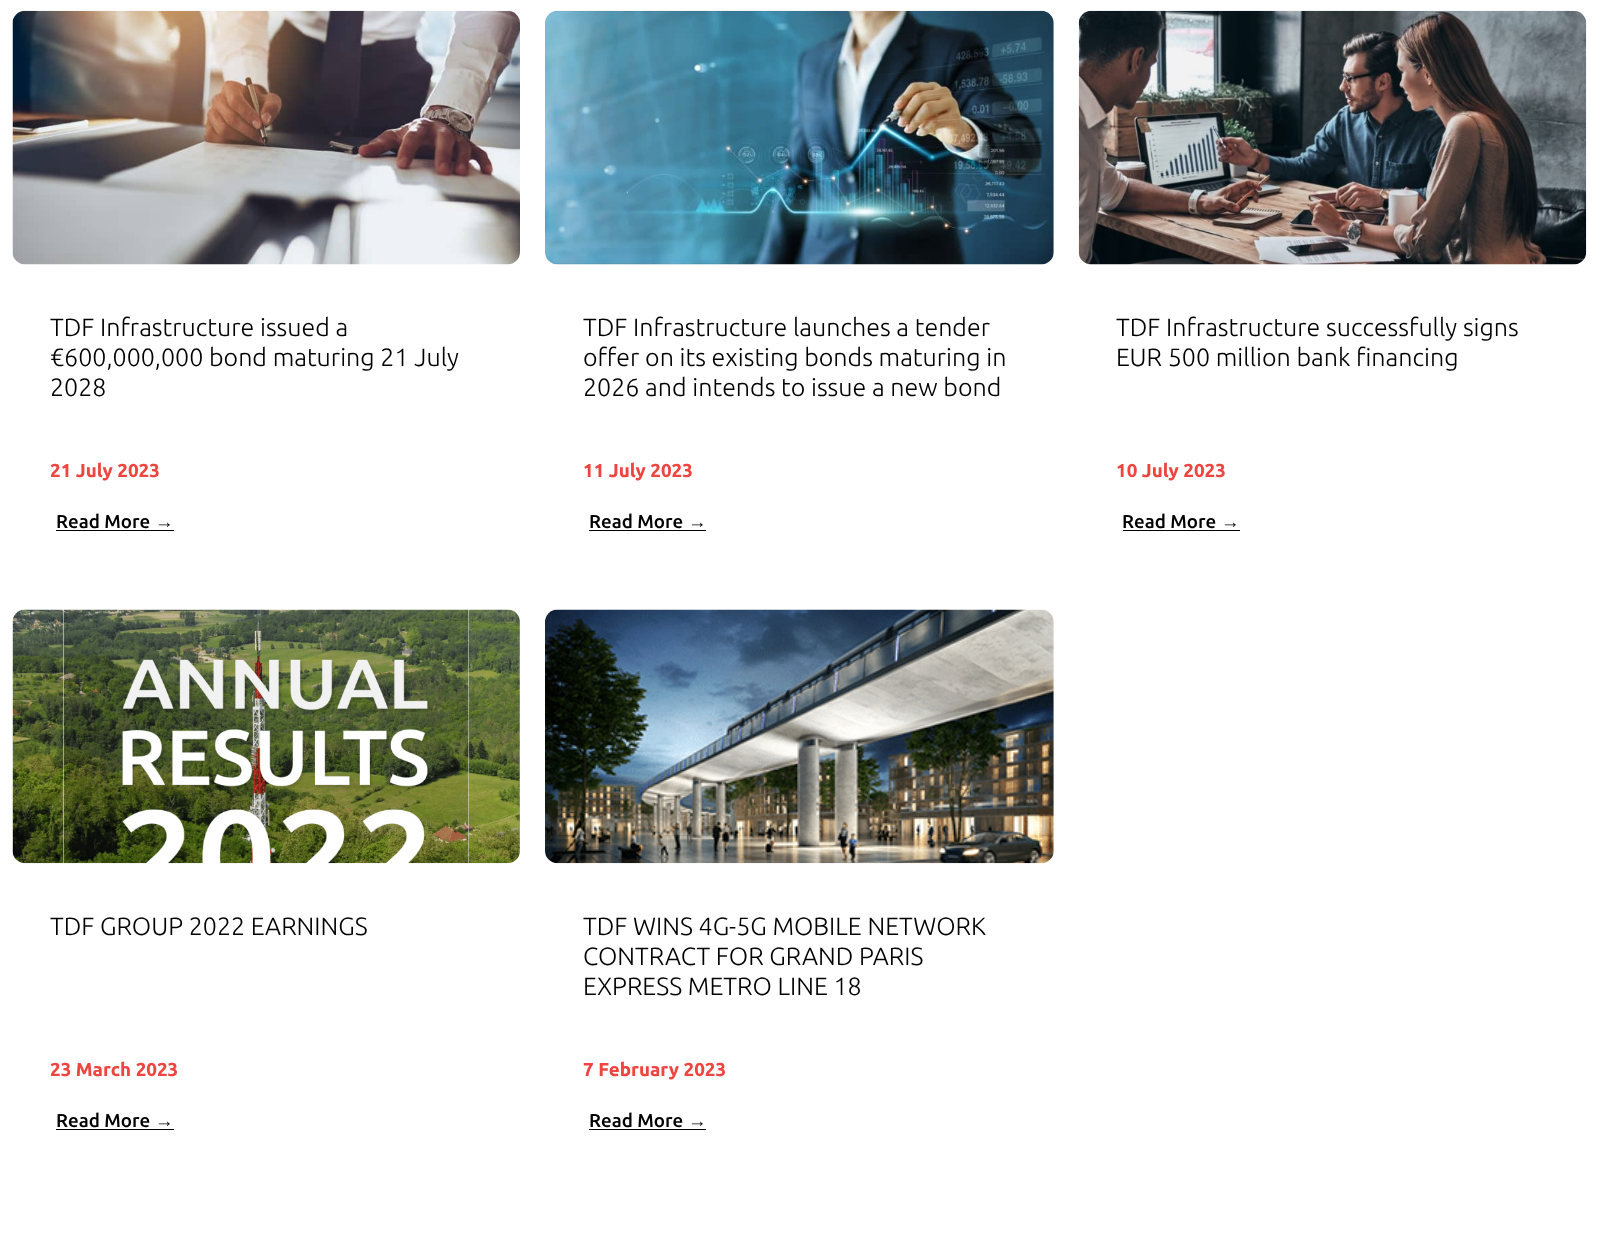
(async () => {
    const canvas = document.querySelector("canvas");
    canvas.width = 1605;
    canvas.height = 1237;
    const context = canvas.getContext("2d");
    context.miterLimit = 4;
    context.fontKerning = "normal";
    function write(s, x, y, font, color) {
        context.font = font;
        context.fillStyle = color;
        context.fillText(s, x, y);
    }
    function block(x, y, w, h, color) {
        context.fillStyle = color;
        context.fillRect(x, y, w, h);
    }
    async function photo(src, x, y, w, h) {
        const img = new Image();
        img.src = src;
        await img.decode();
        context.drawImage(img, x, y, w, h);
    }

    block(0, 0, 1605, 1237, "rgb(255, 255, 255)");
    await photo("media/1.png", 12, 10, 508, 255);
    write("TDF Infrastructure issued a", 50, 336, "300 25px Ubuntu", "rgb(0, 0, 0)");
    write("€600,000,000 bond maturing 21 July", 50, 366, "300 25px Ubuntu", "rgb(0, 0, 0)");
    write("2028", 50, 396, "300 25px Ubuntu", "rgb(0, 0, 0)");
    write("21 July 2023", 50, 477, "bold 18.75px Ubuntu", "rgb(238, 69, 64)");
    write("Read More", 56, 528, "500 18.75px Ubuntu", "rgb(0, 0, 0)");
    write("→", 155, 528, "18.75px Liberation Sans", "rgb(0, 0, 0)");
    block(56, 530, 118, 1, "rgb(0, 0, 0)");
    await photo("media/2.png", 545, 10, 509, 255);
    write("TDF Infrastructure launches a tender", 583, 336, "300 25px Ubuntu", "rgb(0, 0, 0)");
    write("offer on its existing bonds maturing in", 583, 366, "300 25px Ubuntu", "rgb(0, 0, 0)");
    write("2026 and intends to issue a new bond", 583, 396, "300 25px Ubuntu", "rgb(0, 0, 0)");
    write("11 July 2023", 583, 477, "bold 18.75px Ubuntu", "rgb(238, 69, 64)");
    write("Read More", 589, 528, "500 18.75px Ubuntu", "rgb(0, 0, 0)");
    write("→", 688, 528, "18.75px Liberation Sans", "rgb(0, 0, 0)");
    block(589, 530, 117, 1, "rgb(0, 0, 0)");
    await photo("media/3.png", 1078, 10, 509, 255);
    write("TDF Infrastructure successfully signs", 1116, 336, "300 25px Ubuntu", "rgb(0, 0, 0)");
    write("EUR 500 million bank financing", 1116, 366, "300 25px Ubuntu", "rgb(0, 0, 0)");
    write("10 July 2023", 1116, 477, "bold 18.75px Ubuntu", "rgb(238, 69, 64)");
    write("Read More", 1122, 528, "500 18.75px Ubuntu", "rgb(0, 0, 0)");
    write("→", 1221, 528, "18.75px Liberation Sans", "rgb(0, 0, 0)");
    block(1123, 530, 117, 1, "rgb(0, 0, 0)");
    await photo("media/4.png", 12, 609, 508, 255);
    write("TDF GROUP 2022 EARNINGS", 50, 935, "300 25px Ubuntu", "rgb(0, 0, 0)");
    write("23 March 2023", 50, 1076, "bold 18.75px Ubuntu", "rgb(238, 69, 64)");
    write("Read More", 56, 1127, "500 18.75px Ubuntu", "rgb(0, 0, 0)");
    write("→", 155, 1127, "18.75px Liberation Sans", "rgb(0, 0, 0)");
    block(56, 1129, 118, 1, "rgb(0, 0, 0)");
    await photo("media/5.png", 545, 609, 509, 255);
    write("TDF WINS 4G-5G MOBILE NETWORK", 583, 935, "300 25px Ubuntu", "rgb(0, 0, 0)");
    write("CONTRACT FOR GRAND PARIS", 583, 965, "300 25px Ubuntu", "rgb(0, 0, 0)");
    write("EXPRESS METRO LINE 18", 583, 995, "300 25px Ubuntu", "rgb(0, 0, 0)");
    write("7 February 2023", 583, 1076, "bold 18.75px Ubuntu", "rgb(238, 69, 64)");
    write("Read More", 589, 1127, "500 18.75px Ubuntu", "rgb(0, 0, 0)");
    write("→", 688, 1127, "18.75px Liberation Sans", "rgb(0, 0, 0)");
    block(589, 1129, 117, 1, "rgb(0, 0, 0)");
})();
